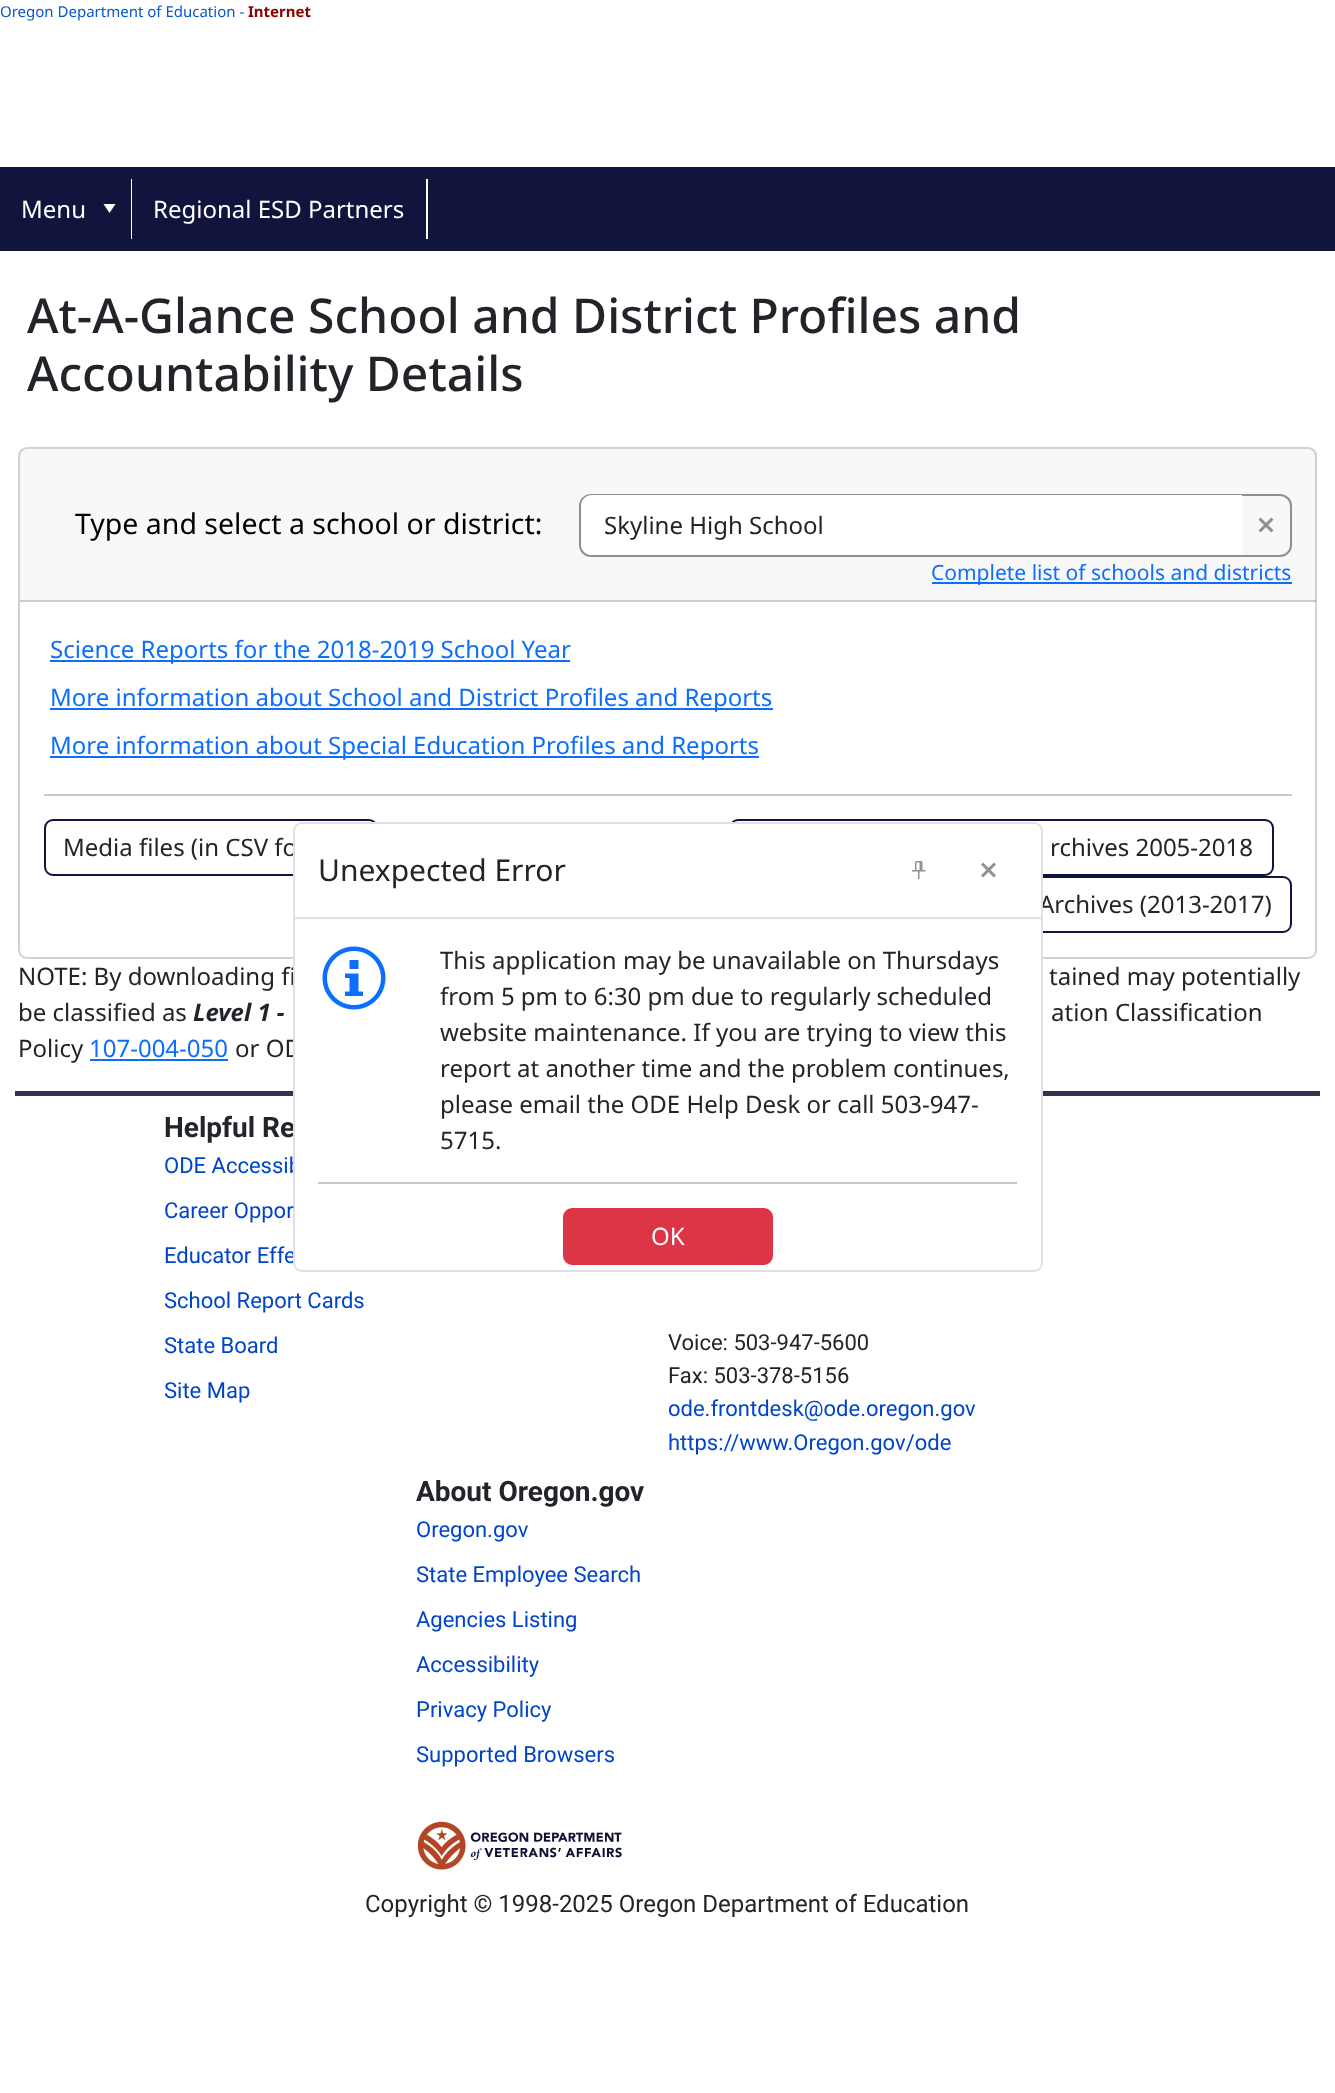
(async () => {
    const canvas = document.querySelector("canvas");
    canvas.width = 1335;
    canvas.height = 2093;
    const context = canvas.getContext("2d");
    context.miterLimit = 4;
    context.fontKerning = "normal";
    function write(s, x, y, font, color) {
        context.font = font;
        context.fillStyle = color;
        context.fillText(s, x, y);
    }
    function block(x, y, w, h, color) {
        context.fillStyle = color;
        context.fillRect(x, y, w, h);
    }
    async function photo(src, x, y, w, h) {
        const img = new Image();
        img.src = src;
        await img.decode();
        context.drawImage(img, x, y, w, h);
    }

    block(0, 0, 1335, 2093, "rgb(255, 255, 255)");
    write("Oregon Department of Education -", 0, 17, "15px Noto Sans", "rgb(10, 88, 202)");
    write("Internet", 248, 17, "bold 15px Noto Sans", "rgb(139, 0, 0)");
    block(0, 167, 1335, 84, "rgb(17, 20, 61)");
    block(131, 179, 1, 60, "rgb(255, 255, 255)");
    write("Menu", 21, 218, "24px Noto Sans", "rgb(255, 255, 255)");
    context.beginPath();
    context.moveTo(109.5, 213);
    context.lineTo(103.5, 204);
    context.lineTo(115.5, 204);
    context.closePath();
    context.fill();
    block(426, 179, 2, 60, "rgb(255, 255, 255)");
    write("Regional ESD Partners", 153, 218, "24px Noto Sans", "rgb(255, 255, 255)");
    write("At-A-Glance School and District Profiles and", 27, 333, "500 48px Noto Sans", "rgb(33, 37, 41)");
    write("Accountability Details", 27, 391, "500 48px Noto Sans", "rgb(33, 37, 41)");
    context.beginPath();
    context.roundRect(19, 448, 1297, 510, 8);
    context.strokeStyle = "rgb(210, 210, 210)";
    context.lineWidth = 2;
    context.stroke();
    block(20, 449, 1296, 153, "rgba(33, 37, 41, 0.03)");
    block(20, 600, 1296, 2, "rgba(0, 0, 0, 0.18)");
    write("Type and select a school or district:", 75, 534, "28.5px Noto Sans", "rgb(0, 0, 0)");
    context.beginPath();
    context.roundRect(580, 495, 711, 61, 11);
    context.strokeStyle = "rgb(141, 143, 145)";
    context.stroke();
    context.fillStyle = "rgb(255, 255, 255)";
    context.beginPath();
    context.roundRect(581, 495, 661, 60, [11, 0, 0, 11]);
    context.fill();
    write("Skyline High School", 604, 534, "24px Noto Sans", "rgb(33, 37, 41)");
    await photo("media/1.png", 1258, 517, 16, 16);
    block(932, 582, 360, 2, "rgb(13, 110, 253)");
    write("Complete list of schools and districts", 931, 580, "21px Noto Sans", "rgb(13, 110, 253)");
    block(50, 660, 520, 2, "rgb(13, 110, 253)");
    write("Science Reports for the 2018-2019 School Year", 50, 658, "24px Noto Sans", "rgb(13, 110, 253)");
    block(50, 708, 723, 2, "rgb(13, 110, 253)");
    write("More information about School and District Profiles and Reports", 50, 706, "24px Noto Sans", "rgb(13, 110, 253)");
    block(50, 756, 709, 2, "rgb(13, 110, 253)");
    write("More information about Special Education Profiles and Reports", 50, 754, "24px Noto Sans", "rgb(13, 110, 253)");
    block(44, 794, 1248, 2, "rgb(200, 201, 202)");
    context.beginPath();
    context.roundRect(45, 820, 332, 55, 8);
    context.strokeStyle = "rgb(17, 20, 61)";
    context.stroke();
    write("Media files (in CSV fo", 63, 856, "24px Noto Sans", "rgb(33, 37, 41)");
    context.beginPath();
    context.roundRect(730, 820, 543, 55, 8);
    context.stroke();
    write("rchives 2005-2018", 1050, 856, "24px Noto Sans", "rgb(33, 37, 41)");
    context.beginPath();
    context.roundRect(939, 877, 352, 55, 8);
    context.stroke();
    write("Archives (2013-2017)", 1039, 913, "24px Noto Sans", "rgb(33, 37, 41)");
    write("NOTE: By downloading fi", 18, 985, "24px Noto Sans", "rgb(33, 37, 41)");
    write("tained may potentially", 1049, 985, "24px Noto Sans", "rgb(33, 37, 41)");
    write("be classified as", 18, 1021, "24px Noto Sans", "rgb(33, 37, 41)");
    write("Level 1 -", 193, 1021, "italic bold 24px Noto Sans", "rgb(33, 37, 41)");
    write("ation Classification", 1051, 1021, "24px Noto Sans", "rgb(33, 37, 41)");
    write("Policy", 18, 1057, "24px Noto Sans", "rgb(33, 37, 41)");
    write("107-004-050", 89, 1057, "24px Noto Sans", "rgb(13, 110, 253)");
    block(90, 1059, 138, 2, "rgb(13, 110, 253)");
    write("or OD", 235, 1057, "24px Noto Sans", "rgb(33, 37, 41)");
    block(15, 1091, 1305, 5, "rgb(51, 51, 80)");
    write("Helpful Re", 164, 1137, "bold 28px Roboto", "rgb(33, 37, 41)");
    write("ODE Accessib", 164, 1173, "22px Roboto", "rgb(0, 69, 201)");
    write("Educator Effe", 164, 1263, "22px Roboto", "rgb(0, 69, 201)");
    context.fillStyle = "rgb(255, 255, 255)";
    context.beginPath();
    context.roundRect(294, 823, 748, 448, 8);
    context.fill();
    context.strokeStyle = "rgb(222, 226, 230)";
    context.stroke();
    block(294, 917, 747, 2, "rgb(222, 226, 230)");
    write("Unexpected Error", 318, 881, "30px Noto Sans", "rgb(33, 37, 41)");
    await photo("media/2.png", 912, 861, 14, 18);
    await photo("media/3.png", 981, 862, 15, 16);
    await photo("media/4.png", 322, 946, 64, 64);
    write("This application may be unavailable on Thursdays", 440, 969, "24px Noto Sans", "rgb(33, 37, 41)");
    write("from 5 pm to 6:30 pm due to regularly scheduled", 440, 1005, "24px Noto Sans", "rgb(33, 37, 41)");
    write("website maintenance. If you are trying to view this", 440, 1041, "24px Noto Sans", "rgb(33, 37, 41)");
    write("report at another time and the problem continues,", 440, 1077, "24px Noto Sans", "rgb(33, 37, 41)");
    write("please email the ODE Help Desk or call 503-947-", 440, 1113, "24px Noto Sans", "rgb(33, 37, 41)");
    write("5715.", 440, 1149, "24px Noto Sans", "rgb(33, 37, 41)");
    block(318, 1182, 699, 2, "rgb(200, 201, 202)");
    context.fillStyle = "rgb(220, 53, 69)";
    context.beginPath();
    context.roundRect(564, 1209, 208, 55, 8);
    context.fill();
    context.strokeStyle = "rgb(220, 53, 69)";
    context.stroke();
    write("OK", 651, 1245, "24px Noto Sans", "rgb(255, 255, 255)");
    write("Career Oppor", 164, 1218, "22px Roboto", "rgb(0, 69, 201)");
    write("School Report Cards", 164, 1308, "22px Roboto", "rgb(0, 69, 201)");
    write("State Board", 164, 1353, "22px Roboto", "rgb(0, 69, 201)");
    write("Site Map", 164, 1398, "22px Roboto", "rgb(0, 69, 201)");
    write("Voice: 503-947-5600", 668, 1350, "22px Roboto", "rgb(33, 37, 41)");
    write("Fax: 503-378-5156", 668, 1383, "22px Roboto", "rgb(33, 37, 41)");
    write("ode.frontdesk@ode.oregon.gov", 668, 1416, "22px Roboto", "rgb(0, 69, 201)");
    write("https://www.Oregon.gov/ode", 668, 1450, "22px Roboto", "rgb(0, 69, 201)");
    write("About Oregon.gov", 416, 1501, "bold 28px Roboto", "rgb(33, 37, 41)");
    write("Oregon.gov", 416, 1537, "22px Roboto", "rgb(0, 69, 201)");
    write("State Employee Search", 416, 1582, "22px Roboto", "rgb(0, 69, 201)");
    write("Agencies Listing", 416, 1627, "22px Roboto", "rgb(0, 69, 201)");
    write("Accessibility", 416, 1672, "22px Roboto", "rgb(0, 69, 201)");
    write("Privacy Policy", 416, 1717, "22px Roboto", "rgb(0, 69, 201)");
    write("Supported Browsers", 416, 1762, "22px Roboto", "rgb(0, 69, 201)");
    await photo("media/5.png", 417, 1821, 205, 49);
    write("Copyright © 1998-2025 Oregon Department of Education", 365, 1912, "24px Roboto", "rgb(33, 37, 41)");
})();
